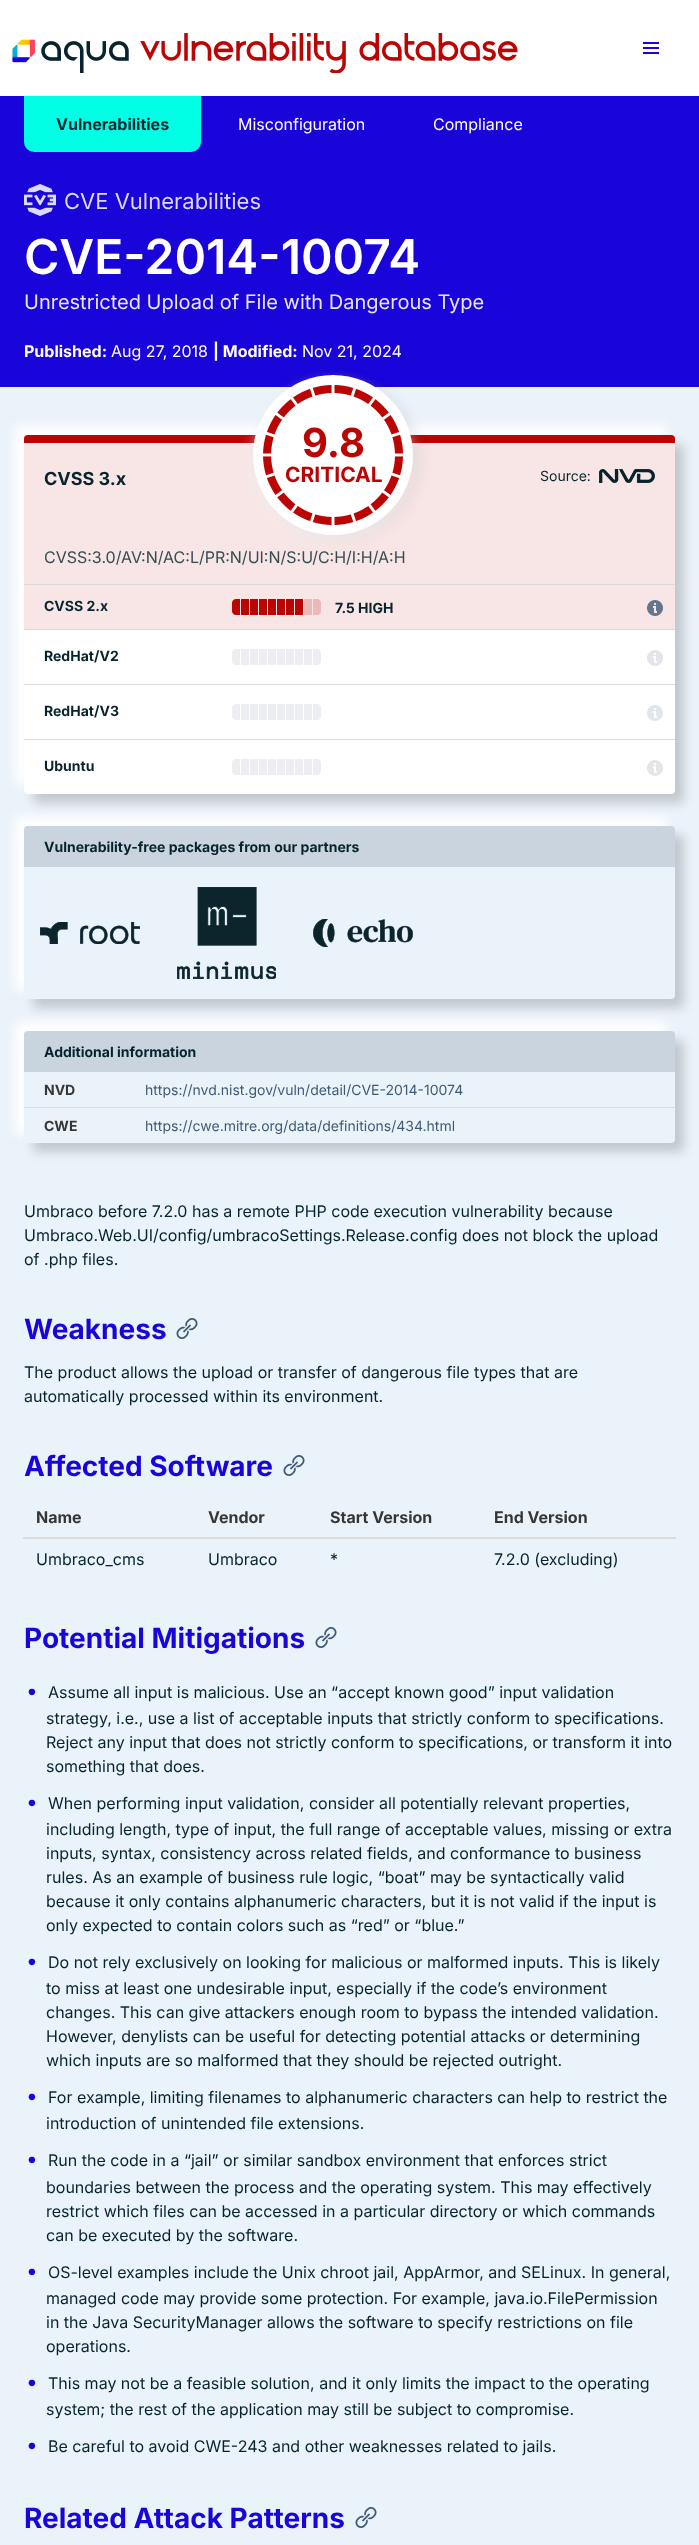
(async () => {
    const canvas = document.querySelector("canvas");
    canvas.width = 699;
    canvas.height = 2545;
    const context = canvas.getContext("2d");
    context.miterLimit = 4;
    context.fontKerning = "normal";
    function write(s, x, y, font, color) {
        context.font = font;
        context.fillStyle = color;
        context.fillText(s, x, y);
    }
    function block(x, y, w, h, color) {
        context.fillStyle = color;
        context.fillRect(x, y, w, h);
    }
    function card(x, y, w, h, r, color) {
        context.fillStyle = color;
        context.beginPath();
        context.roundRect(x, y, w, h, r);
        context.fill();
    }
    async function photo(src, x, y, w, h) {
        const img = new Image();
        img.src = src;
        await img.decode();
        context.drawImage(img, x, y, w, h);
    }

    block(0, 0, 699, 2545, "rgb(235, 243, 250)");
    block(0, 0, 699, 96, "rgb(255, 255, 255)");
    await photo("media/1.png", 12, 33, 506, 40);
    block(643, 42, 16, 2, "rgb(25, 4, 218)");
    block(643, 47, 16, 2, "rgb(25, 4, 218)");
    block(643, 52, 16, 2, "rgb(25, 4, 218)");
    block(0, 96, 699, 291, "rgb(25, 4, 218)");
    context.fillStyle = "rgb(0, 255, 228)";
    context.beginPath();
    context.roundRect(24, 96, 177, 56, [0, 0, 10, 10]);
    context.fill();
    write("Vulnerabilities", 56, 130, "bold 16px Inter", "rgb(7, 36, 45)");
    write("Misconfiguration", 238, 130, "16px Inter", "rgb(255, 255, 255)");
    write("Compliance", 433, 130, "16px Inter", "rgb(255, 255, 255)");
    await photo("media/2.png", 24, 184, 32, 32);
    write("CVE Vulnerabilities", 64, 209, "22px Inter", "rgb(221, 217, 249)");
    write("CVE-2014-10074", 24, 274, "600 48px Inter", "rgb(255, 255, 255)");
    write("Unrestricted Upload of File with Dangerous Type", 24, 309, "20px Inter", "rgb(232, 230, 251)");
    write("Published:", 24, 357, "bold 16px Inter", "rgb(255, 255, 255)");
    write("Aug 27, 2018", 111, 357, "16px Inter", "rgb(255, 255, 255)");
    write("| Modified:", 213, 357, "bold 16px Inter", "rgb(255, 255, 255)");
    write("Nov 21, 2024", 302, 357, "16px Inter", "rgb(255, 255, 255)");
    context.filter = "blur(5.5px)";
    context.beginPath();
    context.roundRect(15, 426, 651, 359, 4);
    context.fill();
    context.filter = "none";
    context.fillStyle = "rgb(193, 199, 205)";
    context.filter = "blur(5.5px)";
    context.beginPath();
    context.roundRect(33, 444, 651, 359, 4);
    context.fill();
    context.filter = "none";
    card(24, 435, 651, 359, 4, "rgb(255, 255, 255)");
    context.fillStyle = "rgba(187, 5, 5, 0.1)";
    context.beginPath();
    context.roundRect(24, 435, 651, 194, [4, 4, 0, 0]);
    context.fill();
    write("CVSS 3.x", 44, 485, "bold 18px Inter", "rgb(7, 36, 45)");
    context.fillStyle = "rgb(187, 5, 5)";
    context.beginPath();
    context.roundRect(24, 435, 651, 8, [4, 4, 0, 0]);
    context.fill();
    context.fillStyle = "rgba(0, 0, 0, 0.09)";
    context.filter = "blur(6.5px)";
    context.beginPath();
    context.roundRect(257, 379, 162, 162, 81);
    context.fill();
    context.filter = "none";
    context.fillStyle = "rgba(255, 255, 255, 0.45)";
    context.filter = "blur(6.5px)";
    context.beginPath();
    context.roundRect(252, 381, 162, 162, 81);
    context.fill();
    context.filter = "none";
    context.fillStyle = "rgb(255, 255, 255)";
    context.beginPath();
    context.arc(333, 455, 80, 0, Math.PI * 2);
    context.fill();
    write("9.8", 302, 457, "bold 40px Inter", "rgb(187, 5, 5)");
    write("CRITICAL", 285, 482, "bold 21px Inter", "rgb(187, 5, 5)");
    await photo("media/3.png", 263, 385, 140, 140);
    write("Source:", 540, 481, "14px Inter", "rgb(7, 36, 45)");
    await photo("media/4.png", 599, 469, 56, 14);
    write("CVSS:3.0/AV:N/AC:L/PR:N/UI:N/S:U/C:H/I:H/A:H", 44, 563, "16px Inter", "rgb(55, 75, 82)");
    block(24, 584, 651, 1, "rgb(219, 219, 219)");
    write("CVSS 2.x", 44, 611, "bold 14px Inter", "rgb(7, 36, 45)");
    await photo("media/5.png", 232, 599, 89, 16);
    write("7.5 HIGH", 335, 613, "bold 14px Inter", "rgb(7, 36, 45)");
    await photo("media/6.png", 647, 600, 16, 16);
    block(24, 629, 651, 1, "rgb(219, 219, 219)");
    write("RedHat/V2", 44, 661, "bold 14px Inter", "rgb(7, 36, 45)");
    await photo("media/7.png", 232, 649, 89, 16);
    await photo("media/8.png", 647, 650, 16, 16);
    block(24, 684, 651, 1, "rgb(219, 219, 219)");
    write("RedHat/V3", 44, 716, "bold 14px Inter", "rgb(7, 36, 45)");
    await photo("media/7.png", 232, 704, 89, 16);
    await photo("media/8.png", 647, 705, 16, 16);
    block(24, 739, 651, 1, "rgb(219, 219, 219)");
    write("Ubuntu", 44, 771, "bold 14px Inter", "rgb(7, 36, 45)");
    await photo("media/7.png", 232, 759, 89, 16);
    await photo("media/8.png", 647, 760, 16, 16);
    context.fillStyle = "rgb(255, 255, 255)";
    context.filter = "blur(5.5px)";
    context.beginPath();
    context.roundRect(15, 817, 651, 173, 4);
    context.fill();
    context.filter = "none";
    context.fillStyle = "rgb(193, 199, 205)";
    context.filter = "blur(5.5px)";
    context.beginPath();
    context.roundRect(33, 835, 651, 173, 4);
    context.fill();
    context.filter = "none";
    card(24, 826, 651, 173, 4, "rgb(235, 243, 250)");
    context.fillStyle = "rgb(201, 212, 223)";
    context.beginPath();
    context.roundRect(24, 826, 651, 41, [4, 4, 0, 0]);
    context.fill();
    write("Vulnerability-free packages from our partners", 44, 852, "bold 14px Inter", "rgb(7, 36, 45)");
    await photo("media/9.png", 40, 922, 100, 22);
    await photo("media/10.png", 177, 887, 99, 92);
    await photo("media/11.png", 313, 919, 100, 28);
    context.fillStyle = "rgb(255, 255, 255)";
    context.filter = "blur(5.5px)";
    context.beginPath();
    context.roundRect(15, 1022, 651, 112, 4);
    context.fill();
    context.filter = "none";
    context.fillStyle = "rgb(193, 199, 205)";
    context.filter = "blur(5.5px)";
    context.beginPath();
    context.roundRect(33, 1040, 651, 112, 4);
    context.fill();
    context.filter = "none";
    card(24, 1031, 651, 112, 4, "rgb(235, 243, 250)");
    context.fillStyle = "rgb(201, 212, 223)";
    context.beginPath();
    context.roundRect(24, 1031, 651, 41, [4, 4, 0, 0]);
    context.fill();
    write("Additional information", 44, 1057, "bold 14px Inter", "rgb(7, 36, 45)");
    write("NVD", 44, 1095, "bold 14px Inter", "rgb(54, 54, 54)");
    block(24, 1107, 652, 1, "rgb(219, 219, 219)");
    write("https://nvd.nist.gov/vuln/detail/CVE-2014-10074", 145, 1095, "14px Inter", "rgb(64, 90, 117)");
    write("CWE", 44, 1131, "bold 14px Inter", "rgb(54, 54, 54)");
    write("https://cwe.mitre.org/data/definitions/434.html", 145, 1131, "14px Inter", "rgb(64, 90, 117)");
    write("Umbraco before 7.2.0 has a remote PHP code execution vulnerability because", 24, 1217, "16px Inter", "rgb(7, 36, 45)");
    write("Umbraco.Web.UI/config/umbracoSettings.Release.config does not block the upload", 24, 1241, "16px Inter", "rgb(7, 36, 45)");
    write("of .php files.", 24, 1265, "16px Inter", "rgb(7, 36, 45)");
    write("Weakness", 24, 1339, "bold 28px Inter", "rgb(25, 4, 218)");
    await photo("media/12.png", 176, 1318, 22, 21);
    write("The product allows the upload or transfer of dangerous file types that are", 24, 1378, "16px Inter", "rgb(7, 36, 45)");
    write("automatically processed within its environment.", 24, 1402, "16px Inter", "rgb(7, 36, 45)");
    write("Affected Software", 24, 1476, "bold 28px Inter", "rgb(25, 4, 218)");
    await photo("media/12.png", 283, 1455, 22, 21);
    write("Name", 36, 1523, "bold 16px Inter", "rgb(54, 54, 54)");
    write("Vendor", 208, 1523, "bold 16px Inter", "rgb(54, 54, 54)");
    write("Start Version", 330, 1523, "bold 16px Inter", "rgb(54, 54, 54)");
    block(23, 1537, 653, 2, "rgb(219, 219, 219)");
    write("End Version", 494, 1523, "bold 16px Inter", "rgb(54, 54, 54)");
    write("Umbraco_cms", 36, 1565, "16px Inter", "rgb(7, 36, 45)");
    write("Umbraco", 208, 1565, "16px Inter", "rgb(7, 36, 45)");
    write("*", 330, 1565, "16px Inter", "rgb(7, 36, 45)");
    write("7.2.0 (excluding)", 494, 1565, "16px Inter", "rgb(7, 36, 45)");
    write("Potential Mitigations", 24, 1648, "bold 28px Inter", "rgb(25, 4, 218)");
    await photo("media/12.png", 315, 1627, 22, 21);
    write("•", 26, 1698, "21px Inter", "rgb(25, 4, 218)");
    write("Assume all input is malicious. Use an “accept known good” input validation", 48, 1698, "16px Inter", "rgb(7, 36, 45)");
    write("strategy, i.e., use a list of acceptable inputs that strictly conform to specifications.", 46, 1724, "16px Inter", "rgb(7, 36, 45)");
    write("Reject any input that does not strictly conform to specifications, or transform it into", 46, 1748, "16px Inter", "rgb(7, 36, 45)");
    write("something that does.", 46, 1772, "16px Inter", "rgb(7, 36, 45)");
    write("•", 26, 1809, "21px Inter", "rgb(25, 4, 218)");
    write("When performing input validation, consider all potentially relevant properties,", 48, 1809, "16px Inter", "rgb(7, 36, 45)");
    write("including length, type of input, the full range of acceptable values, missing or extra", 46, 1835, "16px Inter", "rgb(7, 36, 45)");
    write("inputs, syntax, consistency across related fields, and conformance to business", 46, 1859, "16px Inter", "rgb(7, 36, 45)");
    write("rules. As an example of business rule logic, “boat” may be syntactically valid", 46, 1883, "16px Inter", "rgb(7, 36, 45)");
    write("because it only contains alphanumeric characters, but it is not valid if the input is", 46, 1907, "16px Inter", "rgb(7, 36, 45)");
    write("only expected to contain colors such as “red” or “blue.”", 46, 1931, "16px Inter", "rgb(7, 36, 45)");
    write("•", 26, 1968, "21px Inter", "rgb(25, 4, 218)");
    write("Do not rely exclusively on looking for malicious or malformed inputs. This is likely", 48, 1968, "16px Inter", "rgb(7, 36, 45)");
    write("to miss at least one undesirable input, especially if the code’s environment", 46, 1994, "16px Inter", "rgb(7, 36, 45)");
    write("changes. This can give attackers enough room to bypass the intended validation.", 46, 2018, "16px Inter", "rgb(7, 36, 45)");
    write("However, denylists can be useful for detecting potential attacks or determining", 46, 2042, "16px Inter", "rgb(7, 36, 45)");
    write("which inputs are so malformed that they should be rejected outright.", 46, 2066, "16px Inter", "rgb(7, 36, 45)");
    write("•", 26, 2103, "21px Inter", "rgb(25, 4, 218)");
    write("For example, limiting filenames to alphanumeric characters can help to restrict the", 48, 2103, "16px Inter", "rgb(7, 36, 45)");
    write("introduction of unintended file extensions.", 46, 2129, "16px Inter", "rgb(7, 36, 45)");
    write("•", 26, 2166, "21px Inter", "rgb(25, 4, 218)");
    write("Run the code in a “jail” or similar sandbox environment that enforces strict", 48, 2166, "16px Inter", "rgb(7, 36, 45)");
    write("boundaries between the process and the operating system. This may effectively", 46, 2193, "16px Inter", "rgb(7, 36, 45)");
    write("restrict which files can be accessed in a particular directory or which commands", 46, 2217, "16px Inter", "rgb(7, 36, 45)");
    write("can be executed by the software.", 46, 2241, "16px Inter", "rgb(7, 36, 45)");
    write("•", 26, 2278, "21px Inter", "rgb(25, 4, 218)");
    write("OS-level examples include the Unix chroot jail, AppArmor, and SELinux. In general,", 48, 2278, "16px Inter", "rgb(7, 36, 45)");
    write("managed code may provide some protection. For example, java.io.FilePermission", 46, 2304, "16px Inter", "rgb(7, 36, 45)");
    write("in the Java SecurityManager allows the software to specify restrictions on file", 46, 2328, "16px Inter", "rgb(7, 36, 45)");
    write("operations.", 46, 2352, "16px Inter", "rgb(7, 36, 45)");
    write("•", 26, 2389, "21px Inter", "rgb(25, 4, 218)");
    write("This may not be a feasible solution, and it only limits the impact to the operating", 48, 2389, "16px Inter", "rgb(7, 36, 45)");
    write("system; the rest of the application may still be subject to compromise.", 46, 2415, "16px Inter", "rgb(7, 36, 45)");
    write("•", 26, 2452, "21px Inter", "rgb(25, 4, 218)");
    write("Be careful to avoid CWE-243 and other weaknesses related to jails.", 48, 2452, "16px Inter", "rgb(7, 36, 45)");
    write("Related Attack Patterns", 24, 2528, "bold 28px Inter", "rgb(25, 4, 218)");
    await photo("media/12.png", 355, 2507, 22, 21);
})();
